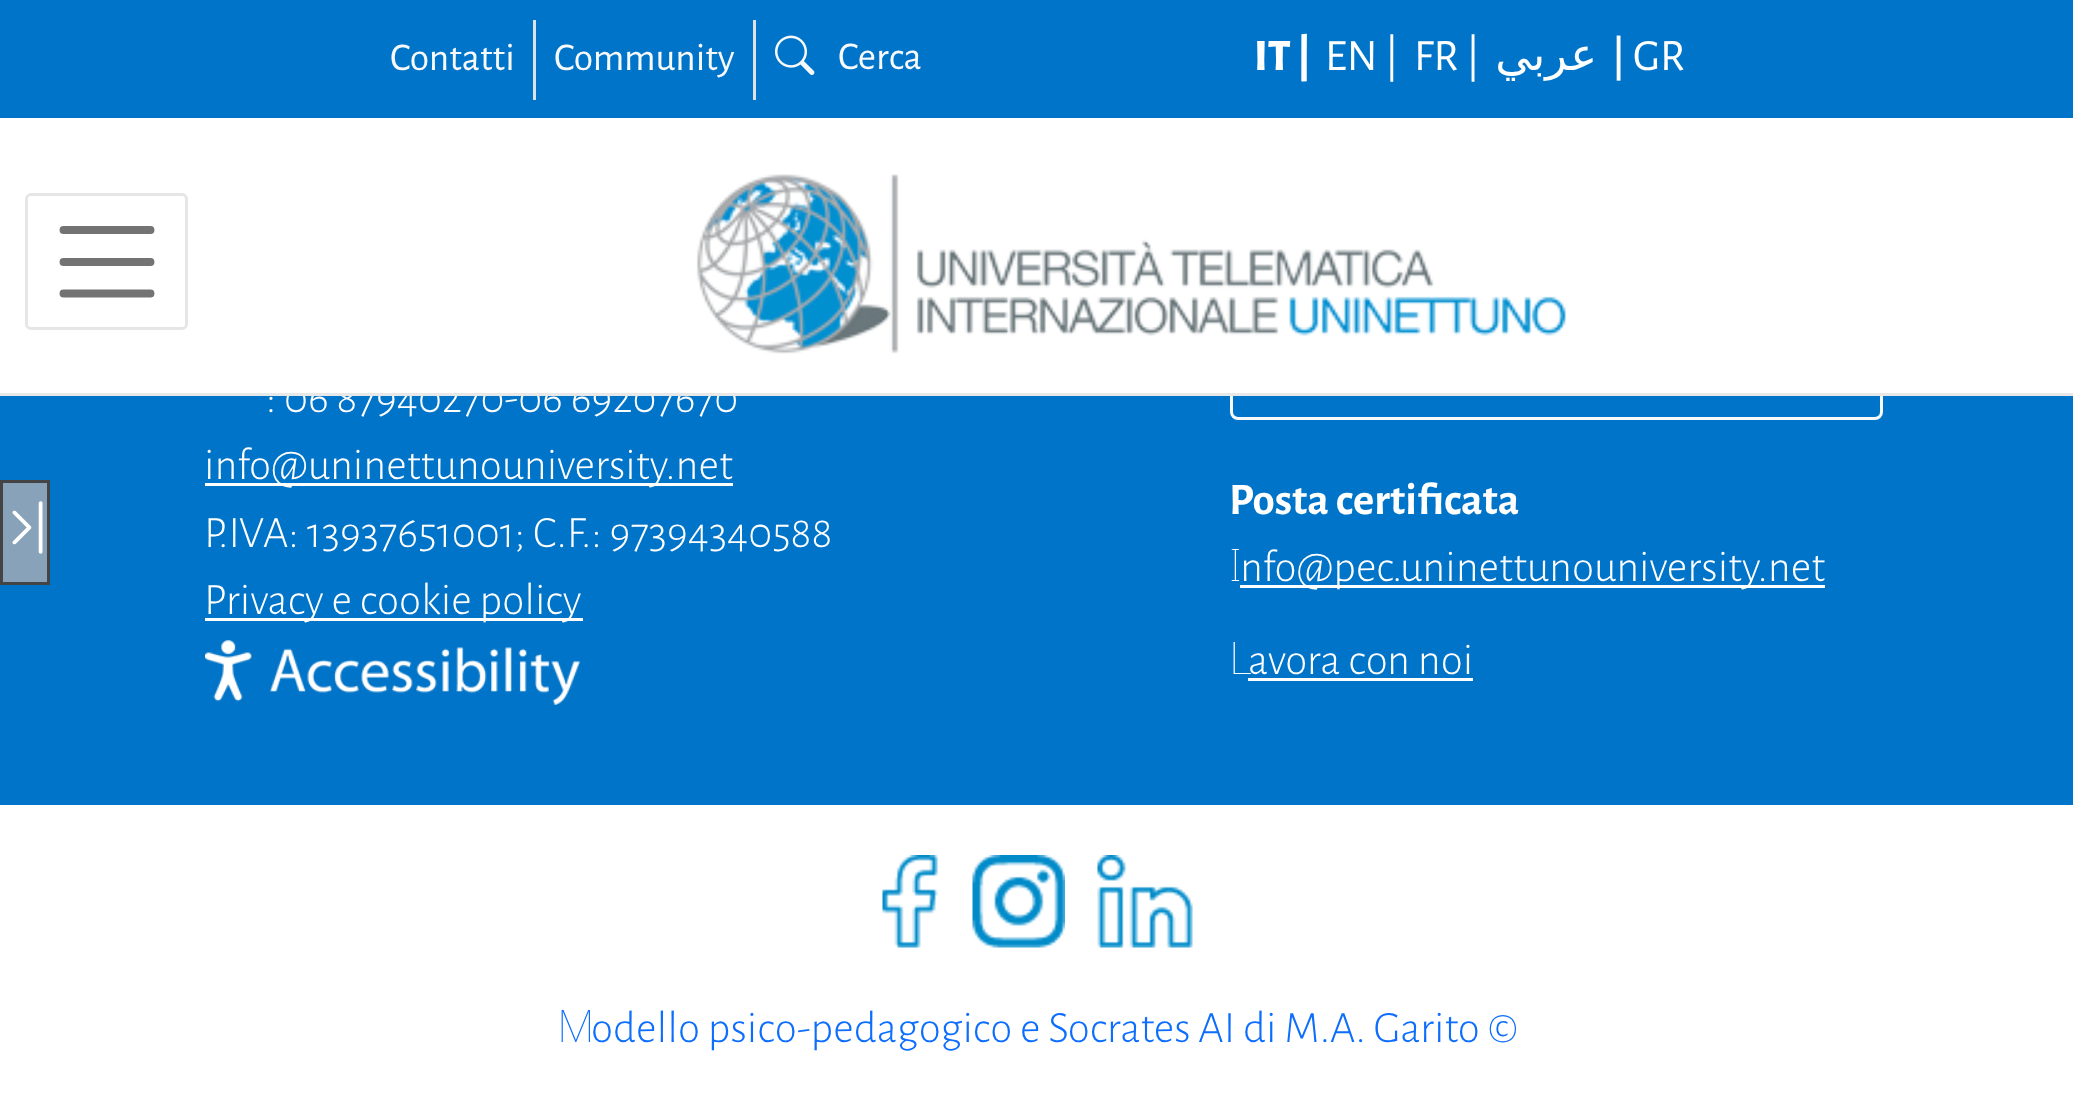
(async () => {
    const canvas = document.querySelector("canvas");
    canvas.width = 2073;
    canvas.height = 1115;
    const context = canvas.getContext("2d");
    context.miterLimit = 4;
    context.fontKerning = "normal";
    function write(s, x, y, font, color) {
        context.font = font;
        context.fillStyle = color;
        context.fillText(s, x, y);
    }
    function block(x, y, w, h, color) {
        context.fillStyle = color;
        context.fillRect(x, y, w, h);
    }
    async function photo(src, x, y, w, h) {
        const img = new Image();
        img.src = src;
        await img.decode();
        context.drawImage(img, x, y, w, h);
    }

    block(0, 0, 2073, 1115, "rgb(0, 116, 201)");
    context.beginPath();
    context.roundRect(1231.5, 334.5, 650, 84, 6.5);
    context.strokeStyle = "rgb(248, 249, 250)";
    context.lineWidth = 3;
    context.stroke();
    block(0, 118, 2073, 275, "rgb(255, 255, 255)");
    write(": 06 87940270-06 69207670", 266, 412, "300 45px Alegreya Sans", "rgb(255, 255, 255)");
    block(0, 393, 2073, 3, "rgb(232, 232, 232)");
    block(533, 20, 3, 80, "rgb(222, 226, 230)");
    write("Contatti", 390, 70, "39.5px Alegreya Sans", "rgb(248, 249, 250)");
    block(753, 20, 3, 80, "rgb(222, 226, 230)");
    write("Community", 554, 70, "39.5px Alegreya Sans", "rgb(248, 249, 250)");
    await photo("media/1.png", 775, 35, 40, 40);
    write("Cerca", 838, 69, "39.5px Alegreya Sans", "rgb(248, 249, 250)");
    write("IT |", 1254, 70, "800 45px Alegreya Sans", "rgb(255, 255, 255)");
    write("EN |", 1325, 70, "45px Alegreya Sans", "rgb(255, 255, 255)");
    write("FR |", 1414, 70, "45px Alegreya Sans", "rgb(255, 255, 255)");
    context.direction = "rtl";
    write("عربي", 1597, 70, "45px DejaVu Sans", "rgb(255, 255, 255)");
    context.direction = "ltr";
    write("|", 1611, 70, "45px DejaVu Sans", "rgb(255, 255, 255)");
    write("GR", 1633, 70, "45px Alegreya Sans", "rgb(255, 255, 255)");
    context.beginPath();
    context.roundRect(26.5, 194.5, 160, 134, 4.5);
    context.strokeStyle = "rgb(230, 230, 230)";
    context.stroke();
    context.beginPath();
    context.moveTo(63.5, 230);
    context.lineTo(150.5, 230);
    context.moveTo(63.5, 262);
    context.lineTo(150.5, 262);
    context.moveTo(63.5, 293.5);
    context.lineTo(150.5, 293.5);
    context.strokeStyle = "rgb(115, 115, 115)";
    context.lineWidth = 7.9;
    context.lineCap = "round";
    context.stroke();
    await photo("media/2.png", 696, 174, 870, 180);
    context.fillStyle = "rgb(135, 162, 185)";
    context.beginPath();
    context.rect(1.5, 481.5, 47, 102);
    context.fill();
    context.strokeStyle = "rgb(68, 68, 68)";
    context.lineWidth = 3;
    context.stroke();
    await photo("media/3.png", 12, 501, 31, 53);
    block(205, 483, 528, 3, "rgb(255, 255, 255)");
    write("info@uninettunouniversity.net", 204, 479, "300 45px Alegreya Sans", "rgb(255, 255, 255)");
    write("P.IVA: 13937651001; C.F.: 97394340588", 204, 547, "300 45px Alegreya Sans", "rgb(255, 255, 255)");
    block(205, 618, 378, 3, "rgb(255, 255, 255)");
    write("Privacy e cookie policy", 204, 614, "300 45px Alegreya Sans", "rgb(255, 255, 255)");
    await photo("media/4.png", 205, 640, 375, 65);
    write("Posta certificata", 1229, 514, "bold 45px Alegreya Sans", "rgb(255, 255, 255)");
    write("I", 1229, 581, "100 45px Noto Sans", "rgb(255, 255, 255)");
    block(1240, 585, 585, 3, "rgb(255, 255, 255)");
    write("nfo@pec.uninettunouniversity.net", 1240, 581, "300 45px Alegreya Sans", "rgb(255, 255, 255)");
    write("L", 1229, 674, "100 45px Noto Sans", "rgb(255, 255, 255)");
    write("avora con noi", 1248, 674, "300 45px Alegreya Sans", "rgb(255, 255, 255)");
    block(1248, 678, 225, 3, "rgb(255, 255, 255)");
    block(0, 805, 2073, 310, "rgb(255, 255, 255)");
    await photo("media/5.png", 882, 855, 56, 93);
    await photo("media/6.png", 972, 855, 93, 93);
    await photo("media/7.png", 1097, 855, 96, 93);
    write("M", 557, 1042, "100 45px Noto Sans", "rgb(13, 110, 253)");
    write("odello psico-pedagogico e Socrates AI di M.A. Garito ©", 591, 1042, "300 45px Alegreya Sans", "rgb(13, 110, 253)");
})();
